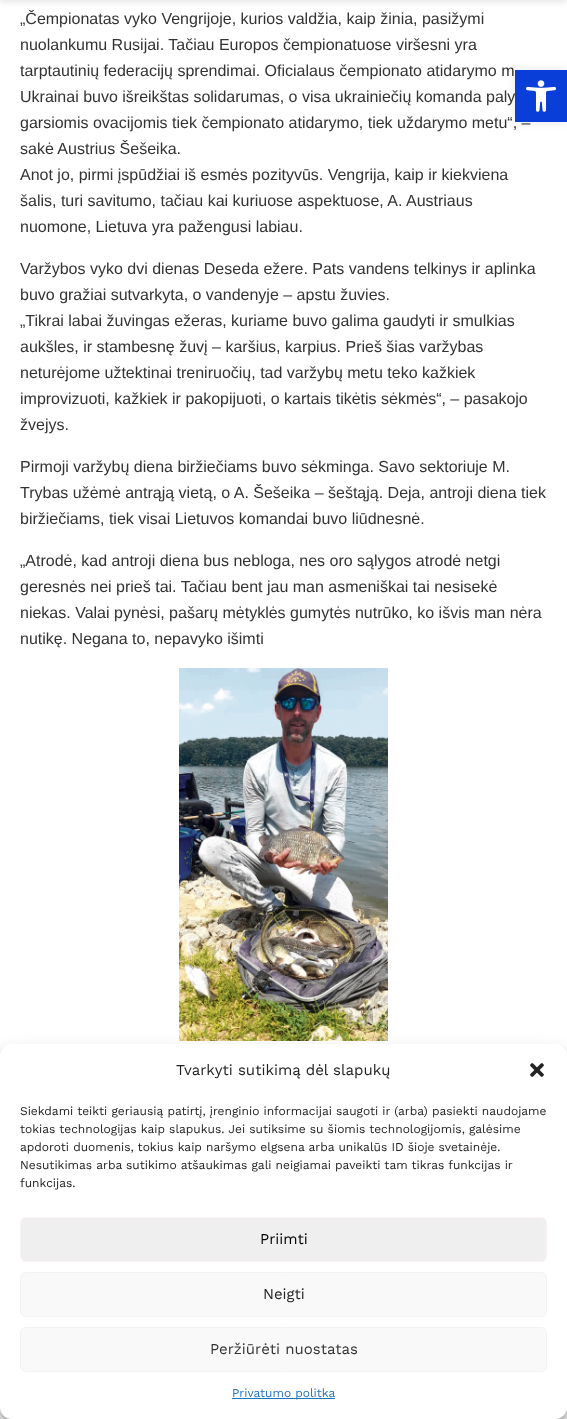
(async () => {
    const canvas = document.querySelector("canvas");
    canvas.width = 567;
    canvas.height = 1419;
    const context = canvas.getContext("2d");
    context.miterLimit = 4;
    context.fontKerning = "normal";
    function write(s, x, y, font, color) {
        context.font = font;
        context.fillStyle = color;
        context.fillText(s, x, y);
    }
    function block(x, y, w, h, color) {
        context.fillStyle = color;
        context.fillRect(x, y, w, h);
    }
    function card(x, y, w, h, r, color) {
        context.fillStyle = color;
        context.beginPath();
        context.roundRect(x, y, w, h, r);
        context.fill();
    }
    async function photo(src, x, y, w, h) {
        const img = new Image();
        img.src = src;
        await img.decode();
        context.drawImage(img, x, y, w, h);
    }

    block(0, 0, 567, 1419, "rgb(255, 255, 255)");
    context.fillStyle = "rgba(0, 0, 0, 0.1)";
    context.filter = "blur(3px)";
    context.beginPath();
    context.rect(0, -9, 567, 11);
    context.fill();
    context.filter = "none";
    write("„Čempionatas vyko Vengrijoje, kurios valdžia, kaip žinia, pasižymi", 20, 24, "16px Liberation Sans", "rgb(51, 51, 51)");
    write("nuolankumu Rusijai. Tačiau Europos čempionatuose viršesni yra", 20, 50, "16px Liberation Sans", "rgb(51, 51, 51)");
    write("tarptautinių federacijų sprendimai. Oficialaus čempionato atidarymo m", 20, 76, "16px Liberation Sans", "rgb(51, 51, 51)");
    write("Ukrainai buvo išreikštas solidarumas, o visa ukrainiečių komanda paly", 20, 102, "16px Liberation Sans", "rgb(51, 51, 51)");
    write("garsiomis ovacijomis tiek čempionato atidarymo, tiek uždarymo metu“, –", 20, 128, "16px Liberation Sans", "rgb(51, 51, 51)");
    write("sakė Austrius Šešeika.", 20, 154, "16px Liberation Sans", "rgb(51, 51, 51)");
    write("Anot jo, pirmi įspūdžiai iš esmės pozityvūs. Vengrija, kaip ir kiekviena", 20, 180, "16px Liberation Sans", "rgb(51, 51, 51)");
    write("šalis, turi savitumo, tačiau kai kuriuose aspektuose, A. Austriaus", 20, 206, "16px Liberation Sans", "rgb(51, 51, 51)");
    write("nuomone, Lietuva yra pažengusi labiau.", 20, 232, "16px Liberation Sans", "rgb(51, 51, 51)");
    write("Varžybos vyko dvi dienas Deseda ežere. Pats vandens telkinys ir aplinka", 20, 274, "16px Liberation Sans", "rgb(51, 51, 51)");
    write("buvo gražiai sutvarkyta, o vandenyje – apstu žuvies.", 20, 300, "16px Liberation Sans", "rgb(51, 51, 51)");
    write("„Tikrai labai žuvingas ežeras, kuriame buvo galima gaudyti ir smulkias", 20, 326, "16px Liberation Sans", "rgb(51, 51, 51)");
    write("aukšles, ir stambesnę žuvį – karšius, karpius. Prieš šias varžybas", 20, 352, "16px Liberation Sans", "rgb(51, 51, 51)");
    write("neturėjome užtektinai treniruočių, tad varžybų metu teko kažkiek", 20, 378, "16px Liberation Sans", "rgb(51, 51, 51)");
    write("improvizuoti, kažkiek ir pakopijuoti, o kartais tikėtis sėkmės“, – pasakojo", 20, 404, "16px Liberation Sans", "rgb(51, 51, 51)");
    write("žvejys.", 20, 430, "16px Liberation Sans", "rgb(51, 51, 51)");
    write("Pirmoji varžybų diena biržiečiams buvo sėkminga. Savo sektoriuje M.", 20, 472, "16px Liberation Sans", "rgb(51, 51, 51)");
    write("Trybas užėmė antrąją vietą, o A. Šešeika – šeštąją. Deja, antroji diena tiek", 20, 498, "16px Liberation Sans", "rgb(51, 51, 51)");
    write("biržiečiams, tiek visai Lietuvos komandai buvo liūdnesnė.", 20, 524, "16px Liberation Sans", "rgb(51, 51, 51)");
    write("„Atrodė, kad antroji diena bus nebloga, nes oro sąlygos atrodė netgi", 20, 566, "16px Liberation Sans", "rgb(51, 51, 51)");
    write("geresnės nei prieš tai. Tačiau bent jau man asmeniškai tai nesisekė", 20, 592, "16px Liberation Sans", "rgb(51, 51, 51)");
    write("niekas. Valai pynėsi, pašarų mėtyklės gumytės nutrūko, ko išvis man nėra", 20, 618, "16px Liberation Sans", "rgb(51, 51, 51)");
    write("nutikę. Negana to, nepavyko išimti", 20, 644, "16px Liberation Sans", "rgb(51, 51, 51)");
    await photo("media/1.png", 179, 668, 209, 373);
    context.fillStyle = "rgba(0, 0, 0, 0.1)";
    context.filter = "blur(5px)";
    context.beginPath();
    context.rect(515, 70, 52, 52);
    context.fill();
    context.filter = "none";
    block(515, 70, 52, 52, "rgb(10, 62, 216)");
    await photo("media/2.png", 526, 80, 30, 32);
    context.fillStyle = "rgba(0, 0, 0, 0.23)";
    context.filter = "blur(3px)";
    context.beginPath();
    context.roundRect(0, 1050, 567, 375, 12);
    context.fill();
    context.filter = "none";
    context.fillStyle = "rgba(0, 0, 0, 0.19)";
    context.filter = "blur(10px)";
    context.beginPath();
    context.roundRect(0, 1054, 567, 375, 12);
    context.fill();
    context.filter = "none";
    card(0, 1044, 567, 375, 12, "rgb(255, 255, 255)");
    write("Tvarkyti sutikimą dėl slapukų", 176, 1075, "15px Work Sans", "rgb(34, 34, 34)");
    await photo("media/3.png", 530, 1063, 14, 14);
    write("Siekdami teikti geriausią patirtį, įrenginio informacijai saugoti ir (arba) pasiekti naudojame", 20, 1115, "12px Work Sans", "rgb(34, 34, 34)");
    write("tokias technologijas kaip slapukus. Jei sutiksime su šiomis technologijomis, galėsime", 20, 1133, "12px Work Sans", "rgb(34, 34, 34)");
    write("apdoroti duomenis, tokius kaip naršymo elgsena arba unikalūs ID šioje svetainėje.", 20, 1151, "12px Work Sans", "rgb(34, 34, 34)");
    write("Nesutikimas arba sutikimo atšaukimas gali neigiamai paveikti tam tikras funkcijas ir", 20, 1169, "12px Work Sans", "rgb(34, 34, 34)");
    write("funkcijas.", 20, 1187, "12px Work Sans", "rgb(34, 34, 34)");
    context.fillStyle = "rgb(239, 239, 239)";
    context.beginPath();
    context.roundRect(20.5, 1217.5, 526, 44, 5.5);
    context.fill();
    context.strokeStyle = "rgb(252, 242, 242)";
    context.stroke();
    write("Priimti", 260, 1244, "15px Work Sans", "rgb(0, 0, 0)");
    context.fillStyle = "rgb(249, 249, 249)";
    context.beginPath();
    context.roundRect(20.5, 1272.5, 526, 44, 5.5);
    context.fill();
    context.strokeStyle = "rgb(242, 242, 242)";
    context.stroke();
    write("Neigti", 263, 1299, "15px Work Sans", "rgb(34, 34, 34)");
    context.fillStyle = "rgb(249, 249, 249)";
    context.beginPath();
    context.roundRect(20.5, 1327.5, 526, 44, 5.5);
    context.fill();
    context.stroke();
    write("Peržiūrėti nuostatas", 210, 1354, "15px Work Sans", "rgb(51, 51, 51)");
    block(232, 1398, 103, 1, "rgb(30, 115, 190)");
    write("Privatumo politka", 232, 1397, "12px Work Sans", "rgb(30, 115, 190)");
})();
